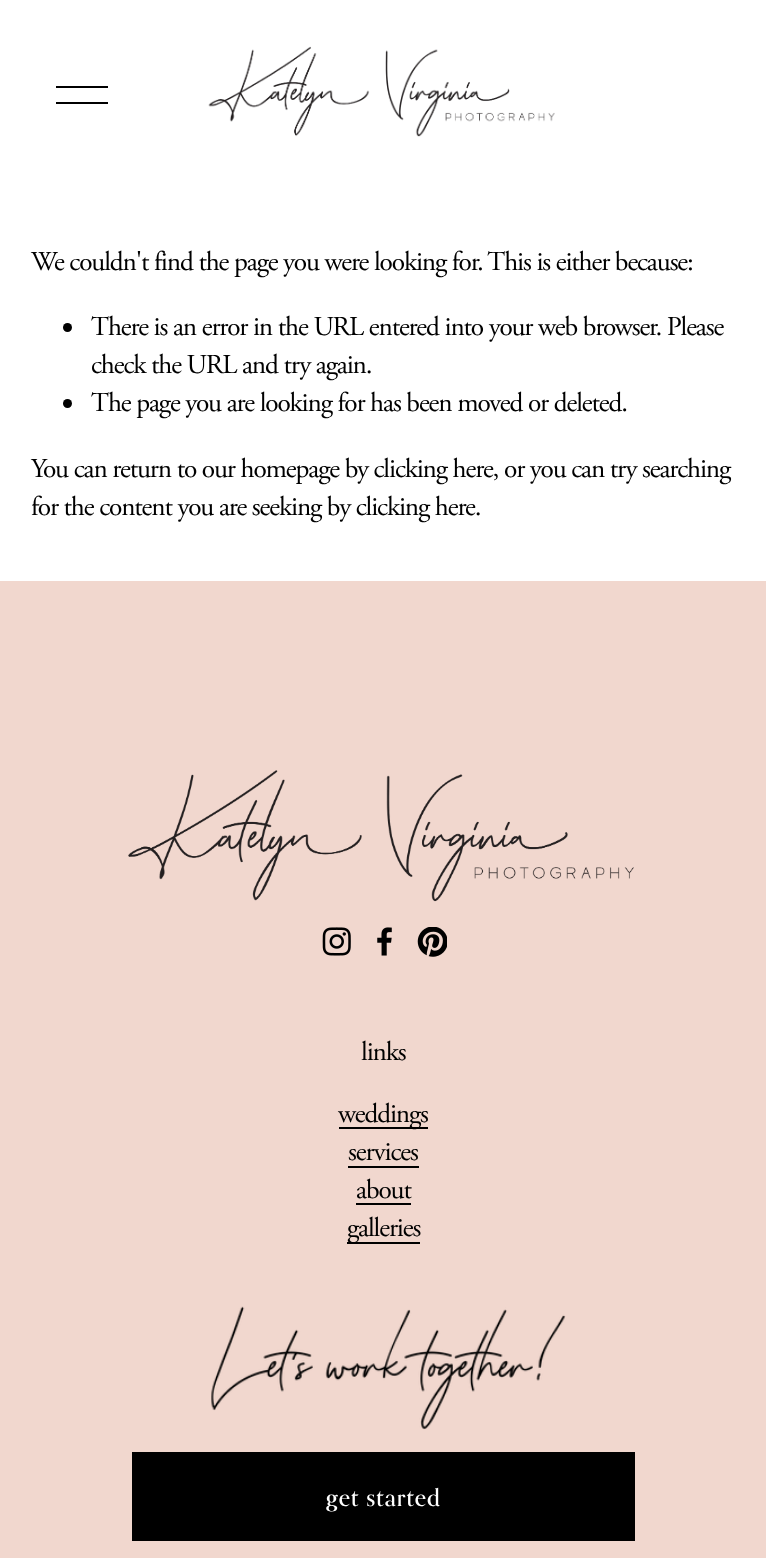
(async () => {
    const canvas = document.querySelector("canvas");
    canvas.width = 766;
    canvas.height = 1558;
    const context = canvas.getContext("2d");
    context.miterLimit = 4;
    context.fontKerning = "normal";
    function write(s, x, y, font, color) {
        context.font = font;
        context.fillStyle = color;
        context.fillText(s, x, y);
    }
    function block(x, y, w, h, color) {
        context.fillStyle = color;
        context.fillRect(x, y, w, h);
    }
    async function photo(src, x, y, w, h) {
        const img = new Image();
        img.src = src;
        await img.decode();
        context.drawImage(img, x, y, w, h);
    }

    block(0, 0, 766, 1558, "rgb(255, 255, 255)");
    block(56, 86, 52, 2, "rgb(0, 0, 0)");
    block(56, 102, 52, 2, "rgb(0, 0, 0)");
    await photo("media/1.png", 208, 46, 347, 91);
    context.letterSpacing = "-1.1px";
    write("We couldn't find the page you were looking for. This is either because:", 31, 270, "27.25px Adobe Garamond", "rgb(0, 0, 0)");
    context.beginPath();
    context.arc(67.5, 327.5, 4.5, 0, Math.PI * 2);
    context.fill();
    write("There is an error in the URL entered into your web browser. Please", 91, 335, "27.25px Adobe Garamond", "rgb(0, 0, 0)");
    write("check the URL and try again.", 91, 373, "27.25px Adobe Garamond", "rgb(0, 0, 0)");
    context.beginPath();
    context.arc(67.5, 403.5, 4.5, 0, Math.PI * 2);
    context.fill();
    write("The page you are looking for has been moved or deleted.", 91, 411, "27.25px Adobe Garamond", "rgb(0, 0, 0)");
    write("You can return to our homepage by clicking here, or you can try searching", 31, 477, "27.25px Adobe Garamond", "rgb(0, 0, 0)");
    write("for the content you are seeking by clicking here.", 31, 515, "27.25px Adobe Garamond", "rgb(0, 0, 0)");
    block(0, 581, 766, 977, "rgb(241, 215, 206)");
    await photo("media/2.png", 128, 770, 506, 132);
    await photo("media/3.png", 322, 927, 29, 29);
    await photo("media/4.png", 377, 927, 15, 29);
    await photo("media/5.png", 417, 927, 30, 30);
    write("links", 361, 1060, "27.25px Adobe Garamond", "rgb(0, 0, 0)");
    block(339, 1127, 89, 2, "rgb(0, 0, 0)");
    write("weddings", 338, 1122, "27.25px Adobe Garamond", "rgb(0, 0, 0)");
    write("services", 348, 1160, "27.25px Adobe Garamond", "rgb(0, 0, 0)");
    block(348, 1166, 71, 2, "rgb(0, 0, 0)");
    write("about", 356, 1198, "27.25px Adobe Garamond", "rgb(0, 0, 0)");
    block(356, 1203, 55, 2, "rgb(0, 0, 0)");
    block(347, 1242, 73, 2, "rgb(0, 0, 0)");
    write("galleries", 347, 1236, "27.25px Adobe Garamond", "rgb(0, 0, 0)");
    await photo("media/6.png", 211, 1306, 355, 124);
    block(132, 1452, 503, 89, "rgb(0, 0, 0)");
    context.letterSpacing = "1px";
    write("get started", 326, 1506, "500 24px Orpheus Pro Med", "rgb(255, 255, 255)");
})();
